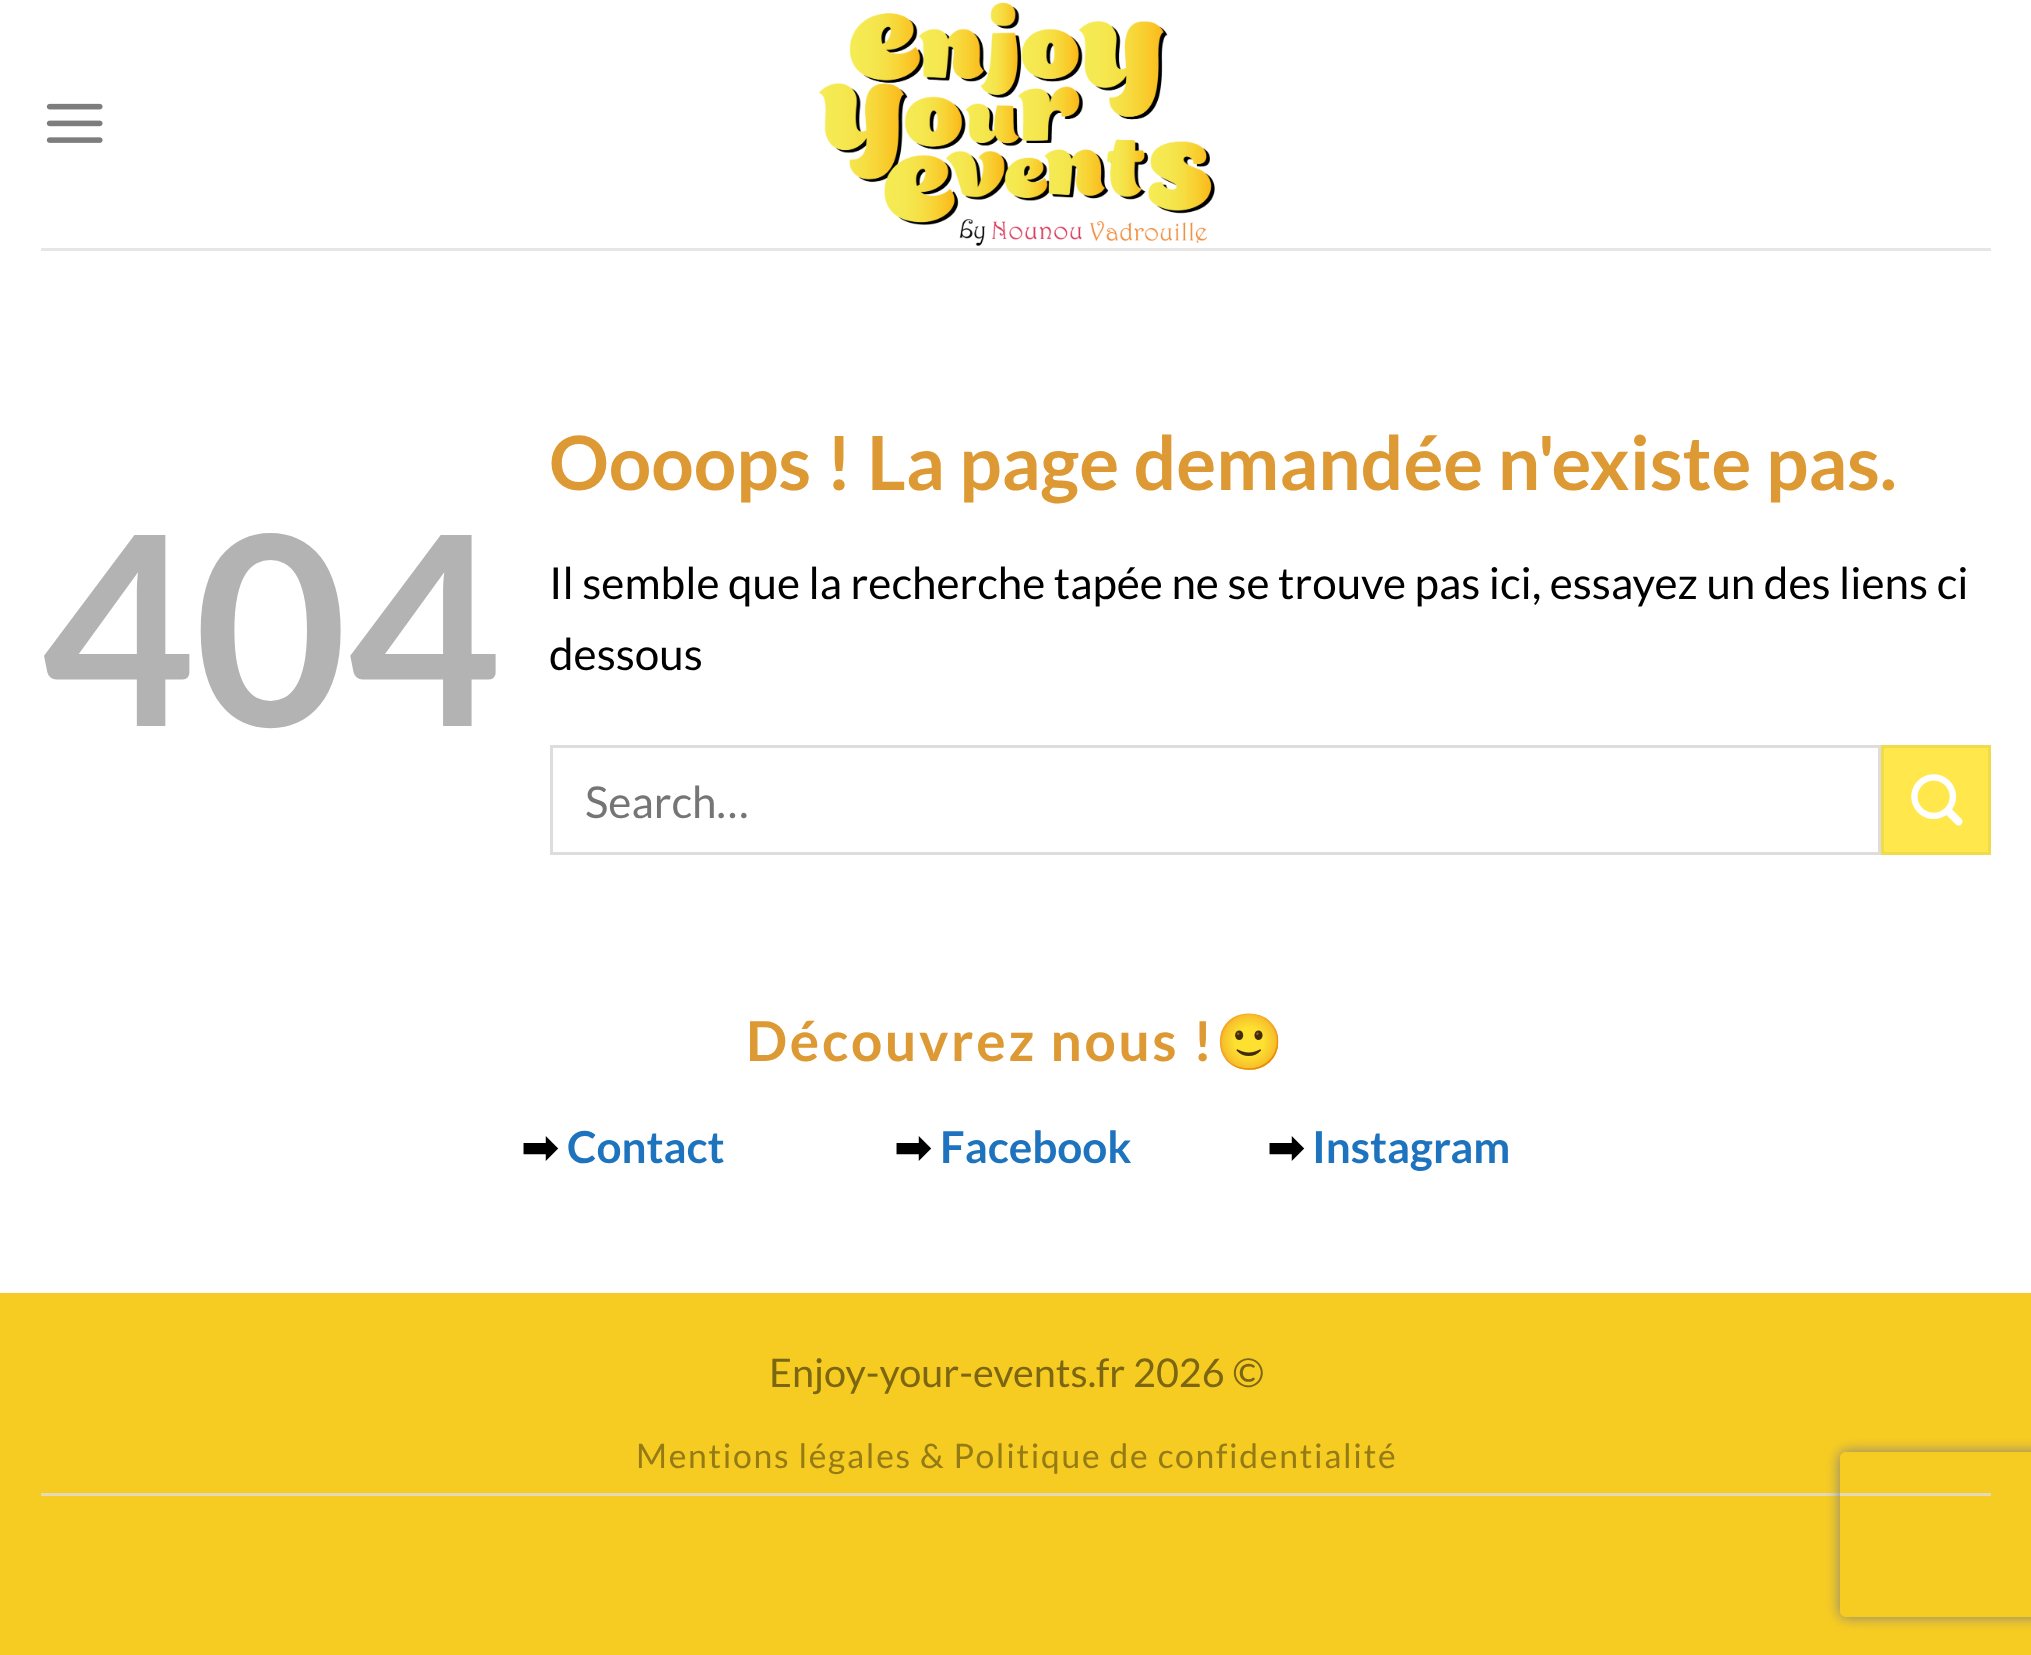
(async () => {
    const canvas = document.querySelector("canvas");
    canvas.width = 2031;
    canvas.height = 1655;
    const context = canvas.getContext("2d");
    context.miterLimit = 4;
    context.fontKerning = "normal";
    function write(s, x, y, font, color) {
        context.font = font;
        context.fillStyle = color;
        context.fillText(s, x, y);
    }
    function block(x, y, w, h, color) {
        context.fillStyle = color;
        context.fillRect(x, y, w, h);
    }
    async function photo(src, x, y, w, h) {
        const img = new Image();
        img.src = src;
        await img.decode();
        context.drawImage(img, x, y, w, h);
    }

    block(0, 0, 2031, 1655, "rgb(247, 204, 34)");
    block(0, 0, 2031, 1293, "rgb(255, 255, 255)");
    await photo("media/1.png", 46, 103, 57, 40);
    await photo("media/2.png", 819, 2, 396, 244);
    block(41, 248, 1950, 3, "rgb(230, 230, 230)");
    write("404", 41, 726, "bold 264px Lato", "rgb(179, 179, 179)");
    write("Oooops ! La page demandée n'existe pas.", 549, 490, "bold 74.75px Lato", "rgb(221, 153, 51)");
    write("Il semble que la recherche tapée ne se trouve pas ici, essayez un des liens ci", 549, 599, "44px Lato", "rgb(0, 0, 0)");
    write("dessous", 549, 670, "44px Lato", "rgb(0, 0, 0)");
    context.strokeStyle = "rgb(221, 221, 221)";
    context.lineWidth = 3;
    context.strokeRect(551.5, 746.5, 1328, 107);
    write("Search…", 585, 818, "44px Lato", "rgb(117, 117, 117)");
    context.fillStyle = "rgb(255, 231, 76)";
    context.beginPath();
    context.rect(1882.5, 746.5, 107, 107);
    context.fill();
    context.strokeStyle = "rgb(242, 219, 72)";
    context.stroke();
    await photo("media/3.png", 1911, 774, 52, 52);
    context.letterSpacing = "2.75px";
    write("Découvrez nous !", 746, 1061, "bold 55px Lato", "rgb(221, 153, 51)");
    write("🙂", 1215, 1061, "bold 55px Noto Color Emoji", "rgb(221, 153, 51)");
    context.letterSpacing = "0px";
    write("➡", 521, 1163, "bold 44px DejaVu Sans", "rgb(0, 0, 0)");
    write("Contact", 567, 1163, "bold 44px Lato", "rgb(30, 115, 190)");
    write("➡", 894, 1163, "bold 44px DejaVu Sans", "rgb(0, 0, 0)");
    write("Facebook", 940, 1163, "bold 44px Lato", "rgb(30, 115, 190)");
    write("➡", 1267, 1163, "bold 44px DejaVu Sans", "rgb(0, 0, 0)");
    write("Instagram", 1312, 1163, "bold 44px Lato", "rgb(30, 115, 190)");
    write("Enjoy-your-events.fr 2026 ©", 769, 1387, "39.6px Lato", "rgb(124, 102, 17)");
    block(41, 1493, 1950, 3, "rgb(226, 218, 184)");
    context.letterSpacing = "1.7px";
    write("Mentions légales & Politique de confidentialité", 636, 1468, "33.7px Lato", "rgb(148, 123, 21)");
    context.save();
    context.beginPath();
    context.moveTo(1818, 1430);
    context.lineTo(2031, 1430);
    context.lineTo(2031, 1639);
    context.lineTo(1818, 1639);
    context.closePath();
    context.moveTo(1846, 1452);
    context.lineTo(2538, 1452);
    context.bezierCurveTo(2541.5, 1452, 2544, 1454.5, 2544, 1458);
    context.lineTo(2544, 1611);
    context.bezierCurveTo(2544, 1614.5, 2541.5, 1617, 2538, 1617);
    context.lineTo(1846, 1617);
    context.bezierCurveTo(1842.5, 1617, 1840, 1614.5, 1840, 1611);
    context.lineTo(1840, 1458);
    context.bezierCurveTo(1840, 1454.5, 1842.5, 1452, 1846, 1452);
    context.closePath();
    context.clip("evenodd");
    context.fillStyle = "rgb(128, 128, 128)";
    context.filter = "blur(7px)";
    context.beginPath();
    context.roundRect(1840, 1452, 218, 165, 6);
    context.fill();
    context.filter = "none";
    context.restore();
})();
